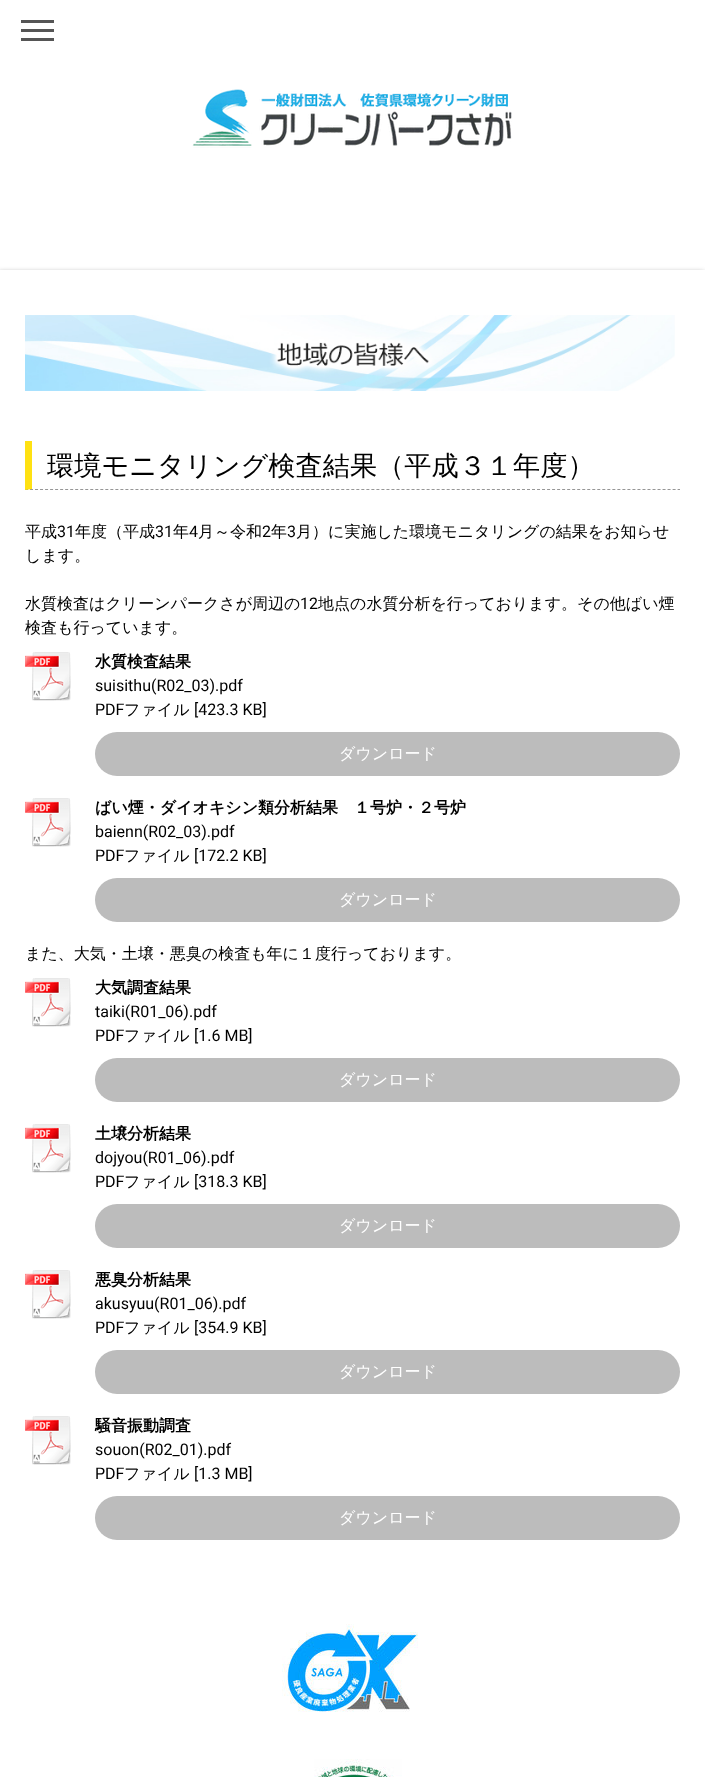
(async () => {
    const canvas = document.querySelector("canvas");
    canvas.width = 705;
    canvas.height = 1777;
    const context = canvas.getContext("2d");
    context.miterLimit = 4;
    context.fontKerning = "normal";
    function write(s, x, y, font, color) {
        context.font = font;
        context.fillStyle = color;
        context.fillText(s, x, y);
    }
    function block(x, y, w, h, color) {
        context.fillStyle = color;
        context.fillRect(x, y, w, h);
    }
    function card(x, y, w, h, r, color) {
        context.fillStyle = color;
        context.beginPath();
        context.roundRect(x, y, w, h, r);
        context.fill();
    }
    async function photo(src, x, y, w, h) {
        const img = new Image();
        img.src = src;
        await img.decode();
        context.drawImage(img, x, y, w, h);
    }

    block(0, 0, 705, 1777, "rgb(255, 255, 255)");
    block(21, 29, 33, 3, "rgb(85, 85, 85)");
    block(21, 20, 33, 3, "rgb(85, 85, 85)");
    block(21, 38, 33, 3, "rgb(85, 85, 85)");
    await photo("media/1.png", 192, 89, 320, 59);
    context.fillStyle = "rgba(0, 0, 0, 0.44)";
    context.filter = "blur(2.5px)";
    context.beginPath();
    context.rect(-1, 272, 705, 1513);
    context.fill();
    context.filter = "none";
    block(0, 270, 705, 1507, "rgb(255, 255, 255)");
    await photo("media/2.png", 25, 315, 650, 76);
    context.beginPath();
    context.moveTo(25, 489.5);
    context.lineTo(680, 489.5);
    context.strokeStyle = "rgb(150, 150, 150)";
    context.setLineDash([3, 2.02]);
    context.stroke();
    context.fillStyle = "rgb(255, 225, 18)";
    context.beginPath();
    context.moveTo(25, 490);
    context.lineTo(25, 441);
    context.lineTo(32, 441);
    context.lineTo(32, 489);
    context.closePath();
    context.fill();
    write("環境モニタリング検査結果（平成３１年度）", 47, 475, "500 27.2px WenQuanYi Zen Hei", "rgb(0, 0, 0)");
    write("平成", 25, 537, "500 16px WenQuanYi Zen Hei", "rgb(0, 0, 0)");
    write("31", 57, 537, "16px Roboto", "rgb(0, 0, 0)");
    write("年度（平成", 75, 537, "500 16px WenQuanYi Zen Hei", "rgb(0, 0, 0)");
    write("31", 155, 537, "16px Roboto", "rgb(0, 0, 0)");
    write("年", 173, 537, "500 16px WenQuanYi Zen Hei", "rgb(0, 0, 0)");
    write("4", 189, 537, "16px Roboto", "rgb(0, 0, 0)");
    write("月～令和", 198, 537, "500 16px WenQuanYi Zen Hei", "rgb(0, 0, 0)");
    write("2", 262, 537, "16px Roboto", "rgb(0, 0, 0)");
    write("年", 271, 537, "500 16px WenQuanYi Zen Hei", "rgb(0, 0, 0)");
    write("3", 287, 537, "16px Roboto", "rgb(0, 0, 0)");
    write("月）に実施した環境モニタリングの結果をお知らせ", 296, 537, "500 16px WenQuanYi Zen Hei", "rgb(0, 0, 0)");
    write("します。", 25, 561, "500 16px WenQuanYi Zen Hei", "rgb(0, 0, 0)");
    write("水質検査はクリーンパークさが周辺の", 25, 609, "500 16px WenQuanYi Zen Hei", "rgb(0, 0, 0)");
    write("12", 300, 609, "16px Roboto", "rgb(0, 0, 0)");
    write("地点の水質分析を行っております。その他ばい煙", 318, 609, "500 16px WenQuanYi Zen Hei", "rgb(0, 0, 0)");
    write("検査も行っています。", 25, 633, "500 16px WenQuanYi Zen Hei", "rgb(0, 0, 0)");
    await photo("media/3.png", 25, 652, 46, 49);
    write("水質検査結果", 95, 667, "bold 16px WenQuanYi Zen Hei", "rgb(0, 0, 0)");
    write("suisithu(R02_03).pdf", 95, 691, "16px Roboto", "rgb(0, 0, 0)");
    write("PDF", 95, 715, "16px Roboto", "rgb(0, 0, 0)");
    write("ファイル", 124, 715, "500 16px WenQuanYi Zen Hei", "rgb(0, 0, 0)");
    write("[423.3 KB]", 194, 715, "16px Roboto", "rgb(0, 0, 0)");
    card(95, 732, 585, 44, 22, "rgb(188, 188, 188)");
    write("ダウンロード", 339, 759, "500 16px WenQuanYi Zen Hei", "rgb(255, 255, 255)");
    await photo("media/3.png", 25, 798, 46, 49);
    write("ばい煙・ダイオキシン類分析結果　１号炉・２号炉", 95, 813, "bold 16px WenQuanYi Zen Hei", "rgb(0, 0, 0)");
    write("baienn(R02_03).pdf", 95, 837, "16px Roboto", "rgb(0, 0, 0)");
    write("PDF", 95, 861, "16px Roboto", "rgb(0, 0, 0)");
    write("ファイル", 124, 861, "500 16px WenQuanYi Zen Hei", "rgb(0, 0, 0)");
    write("[172.2 KB]", 194, 861, "16px Roboto", "rgb(0, 0, 0)");
    card(95, 878, 585, 44, 22, "rgb(188, 188, 188)");
    write("ダウンロード", 339, 905, "500 16px WenQuanYi Zen Hei", "rgb(255, 255, 255)");
    write("また、大気・土壌・悪臭の検査も年に１度行っております。", 25, 959, "500 16px WenQuanYi Zen Hei", "rgb(0, 0, 0)");
    await photo("media/3.png", 25, 978, 46, 49);
    write("大気調査結果", 95, 993, "bold 16px WenQuanYi Zen Hei", "rgb(0, 0, 0)");
    write("taiki(R01_06).pdf", 95, 1017, "16px Roboto", "rgb(0, 0, 0)");
    write("PDF", 95, 1041, "16px Roboto", "rgb(0, 0, 0)");
    write("ファイル", 124, 1041, "500 16px WenQuanYi Zen Hei", "rgb(0, 0, 0)");
    write("[1.6 MB]", 194, 1041, "16px Roboto", "rgb(0, 0, 0)");
    card(95, 1058, 585, 44, 22, "rgb(188, 188, 188)");
    write("ダウンロード", 339, 1085, "500 16px WenQuanYi Zen Hei", "rgb(255, 255, 255)");
    await photo("media/3.png", 25, 1124, 46, 49);
    write("土壌分析結果", 95, 1139, "bold 16px WenQuanYi Zen Hei", "rgb(0, 0, 0)");
    write("dojyou(R01_06).pdf", 95, 1163, "16px Roboto", "rgb(0, 0, 0)");
    write("PDF", 95, 1187, "16px Roboto", "rgb(0, 0, 0)");
    write("ファイル", 124, 1187, "500 16px WenQuanYi Zen Hei", "rgb(0, 0, 0)");
    write("[318.3 KB]", 194, 1187, "16px Roboto", "rgb(0, 0, 0)");
    card(95, 1204, 585, 44, 22, "rgb(188, 188, 188)");
    write("ダウンロード", 339, 1231, "500 16px WenQuanYi Zen Hei", "rgb(255, 255, 255)");
    await photo("media/3.png", 25, 1270, 46, 49);
    write("悪臭分析結果", 95, 1285, "bold 16px WenQuanYi Zen Hei", "rgb(0, 0, 0)");
    write("akusyuu(R01_06).pdf", 95, 1309, "16px Roboto", "rgb(0, 0, 0)");
    write("PDF", 95, 1333, "16px Roboto", "rgb(0, 0, 0)");
    write("ファイル", 124, 1333, "500 16px WenQuanYi Zen Hei", "rgb(0, 0, 0)");
    write("[354.9 KB]", 194, 1333, "16px Roboto", "rgb(0, 0, 0)");
    card(95, 1350, 585, 44, 22, "rgb(188, 188, 188)");
    write("ダウンロード", 339, 1377, "500 16px WenQuanYi Zen Hei", "rgb(255, 255, 255)");
    await photo("media/3.png", 25, 1416, 46, 49);
    write("騒音振動調査", 95, 1431, "bold 16px WenQuanYi Zen Hei", "rgb(0, 0, 0)");
    write("souon(R02_01).pdf", 95, 1455, "16px Roboto", "rgb(0, 0, 0)");
    write("PDF", 95, 1479, "16px Roboto", "rgb(0, 0, 0)");
    write("ファイル", 124, 1479, "500 16px WenQuanYi Zen Hei", "rgb(0, 0, 0)");
    write("[1.3 MB]", 194, 1479, "16px Roboto", "rgb(0, 0, 0)");
    card(95, 1496, 585, 44, 22, "rgb(188, 188, 188)");
    write("ダウンロード", 339, 1523, "500 16px WenQuanYi Zen Hei", "rgb(255, 255, 255)");
    await photo("media/4.png", 282, 1624, 136, 88);
    await photo("media/5.png", 314, 1759, 88, 18);
})();
